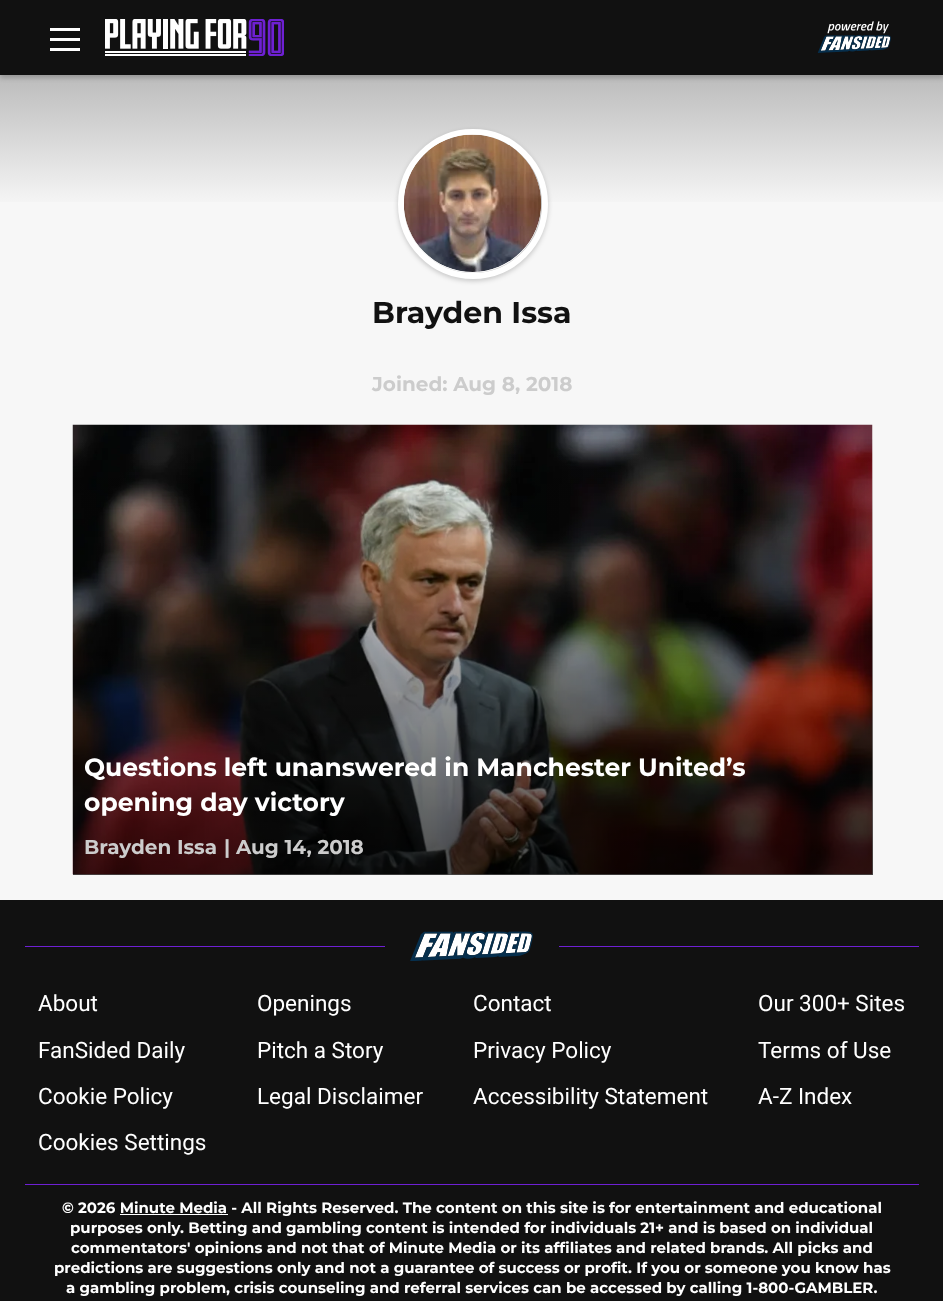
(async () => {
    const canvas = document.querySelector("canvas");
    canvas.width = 943;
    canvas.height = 1301;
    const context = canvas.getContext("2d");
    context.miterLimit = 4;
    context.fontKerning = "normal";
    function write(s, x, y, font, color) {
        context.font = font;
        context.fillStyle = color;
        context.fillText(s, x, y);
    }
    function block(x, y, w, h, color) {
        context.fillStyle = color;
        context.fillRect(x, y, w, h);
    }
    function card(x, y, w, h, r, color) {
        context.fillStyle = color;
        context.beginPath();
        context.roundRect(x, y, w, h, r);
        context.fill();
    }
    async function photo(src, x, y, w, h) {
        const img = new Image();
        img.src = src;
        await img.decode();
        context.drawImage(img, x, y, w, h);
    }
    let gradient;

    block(0, 0, 943, 1301, "rgb(247, 247, 247)");
    gradient = context.createLinearGradient(472, 210, 472, -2.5);
    gradient.addColorStop(0, "rgb(248, 248, 248)");
    gradient.addColorStop(1, "rgb(153, 153, 153)");
    context.fillStyle = gradient;
    context.fillRect(0, 75, 943, 127);
    context.fillStyle = "rgba(0, 0, 0, 0.2)";
    context.filter = "blur(2.5px)";
    context.beginPath();
    context.rect(0, 3, 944, 75);
    context.fill();
    context.filter = "none";
    block(0, 0, 943, 75, "rgb(17, 17, 17)");
    block(50, 28, 30, 3, "rgb(255, 255, 255)");
    block(50, 38, 30, 3, "rgb(255, 255, 255)");
    block(50, 48, 30, 3, "rgb(255, 255, 255)");
    await photo("media/1.png", 105, 19, 179, 37);
    await photo("media/2.png", 817, 21, 74, 32);
    context.fillStyle = "rgba(0, 0, 0, 0.2)";
    context.filter = "blur(2.5px)";
    context.beginPath();
    context.roundRect(398, 131, 150, 150, 75);
    context.fill();
    context.filter = "none";
    context.beginPath();
    context.arc(473, 204, 72, 0, Math.PI * 2);
    context.strokeStyle = "rgb(255, 255, 255)";
    context.lineWidth = 6;
    context.stroke();
    card(404, 135, 137, 138, 68.5, "rgb(247, 247, 247)");
    await photo("media/3.png", 404, 134, 137, 138);
    write("Brayden Issa", 372, 323, "bold 30px Montserrat", "rgb(17, 17, 17)");
    write("Joined: Aug 8, 2018", 372, 391, "bold 20px Montserrat", "rgb(204, 204, 204)");
    await photo("media/4.png", 72, 424, 801, 451);
    gradient = context.createLinearGradient(473, 875, 473, 425);
    gradient.addColorStop(0, "rgba(0, 0, 0, 0.7)");
    gradient.addColorStop(1, "rgba(0, 0, 0, 0)");
    context.fillStyle = gradient;
    context.fillRect(73, 439, 800, 436);
    write("Questions left unanswered in Manchester United’s", 84, 776, "bold 25px Montserrat", "rgb(255, 255, 255)");
    write("opening day victory", 84, 811, "bold 25px Montserrat", "rgb(255, 255, 255)");
    write("Brayden Issa", 84, 854, "bold 20px Montserrat", "rgb(204, 204, 204)");
    write("|", 224, 854, "bold 20px Montserrat", "rgb(204, 204, 204)");
    write("Aug 14, 2018", 236, 854, "bold 20px Montserrat", "rgb(204, 204, 204)");
    block(0, 900, 943, 401, "rgb(17, 17, 17)");
    block(25, 946, 360, 1, "rgb(110, 32, 211)");
    await photo("media/5.png", 410, 931, 123, 30);
    block(559, 946, 360, 1, "rgb(110, 32, 211)");
    write("About", 38, 1011, "22.5px Roboto", "rgb(255, 255, 255)");
    write("Openings", 257, 1011, "22.5px Roboto", "rgb(255, 255, 255)");
    write("Contact", 473, 1011, "22.5px Roboto", "rgb(255, 255, 255)");
    write("Our 300+ Sites", 758, 1011, "22.5px Roboto", "rgb(255, 255, 255)");
    write("FanSided Daily", 38, 1058, "22.5px Roboto", "rgb(255, 255, 255)");
    write("Pitch a Story", 257, 1058, "22.5px Roboto", "rgb(255, 255, 255)");
    write("Privacy Policy", 473, 1058, "22.5px Roboto", "rgb(255, 255, 255)");
    write("Terms of Use", 758, 1058, "22.5px Roboto", "rgb(255, 255, 255)");
    write("Cookie Policy", 38, 1104, "22.5px Roboto", "rgb(255, 255, 255)");
    write("Legal Disclaimer", 257, 1104, "22.5px Roboto", "rgb(255, 255, 255)");
    write("Accessibility Statement", 473, 1104, "22.5px Roboto", "rgb(255, 255, 255)");
    write("A-Z Index", 758, 1104, "22.5px Roboto", "rgb(255, 255, 255)");
    write("Cookies Settings", 38, 1150, "22.5px Roboto", "rgb(255, 255, 255)");
    block(25, 1184, 894, 1, "rgb(110, 32, 211)");
    write("© 2026 Minute Media - All Rights Reserved. The content on this site is for entertainment and educational", 62, 1213, "bold 15px Montserrat", "rgb(255, 255, 255)");
    block(120, 1214, 108, 1, "rgb(255, 255, 255)");
    write("purposes only. Betting and gambling content is intended for individuals 21+ and is based on individual", 70, 1233, "bold 15px Montserrat", "rgb(255, 255, 255)");
    write("commentators' opinions and not that of Minute Media or its affiliates and related brands. All picks and", 71, 1253, "bold 15px Montserrat", "rgb(255, 255, 255)");
    write("predictions are suggestions only and not a guarantee of success or profit. If you or someone you know has", 54, 1273, "bold 15px Montserrat", "rgb(255, 255, 255)");
    write("a gambling problem, crisis counseling and referral services can be accessed by calling 1-800-GAMBLER.", 66, 1293, "bold 15px Montserrat", "rgb(255, 255, 255)");
})();
